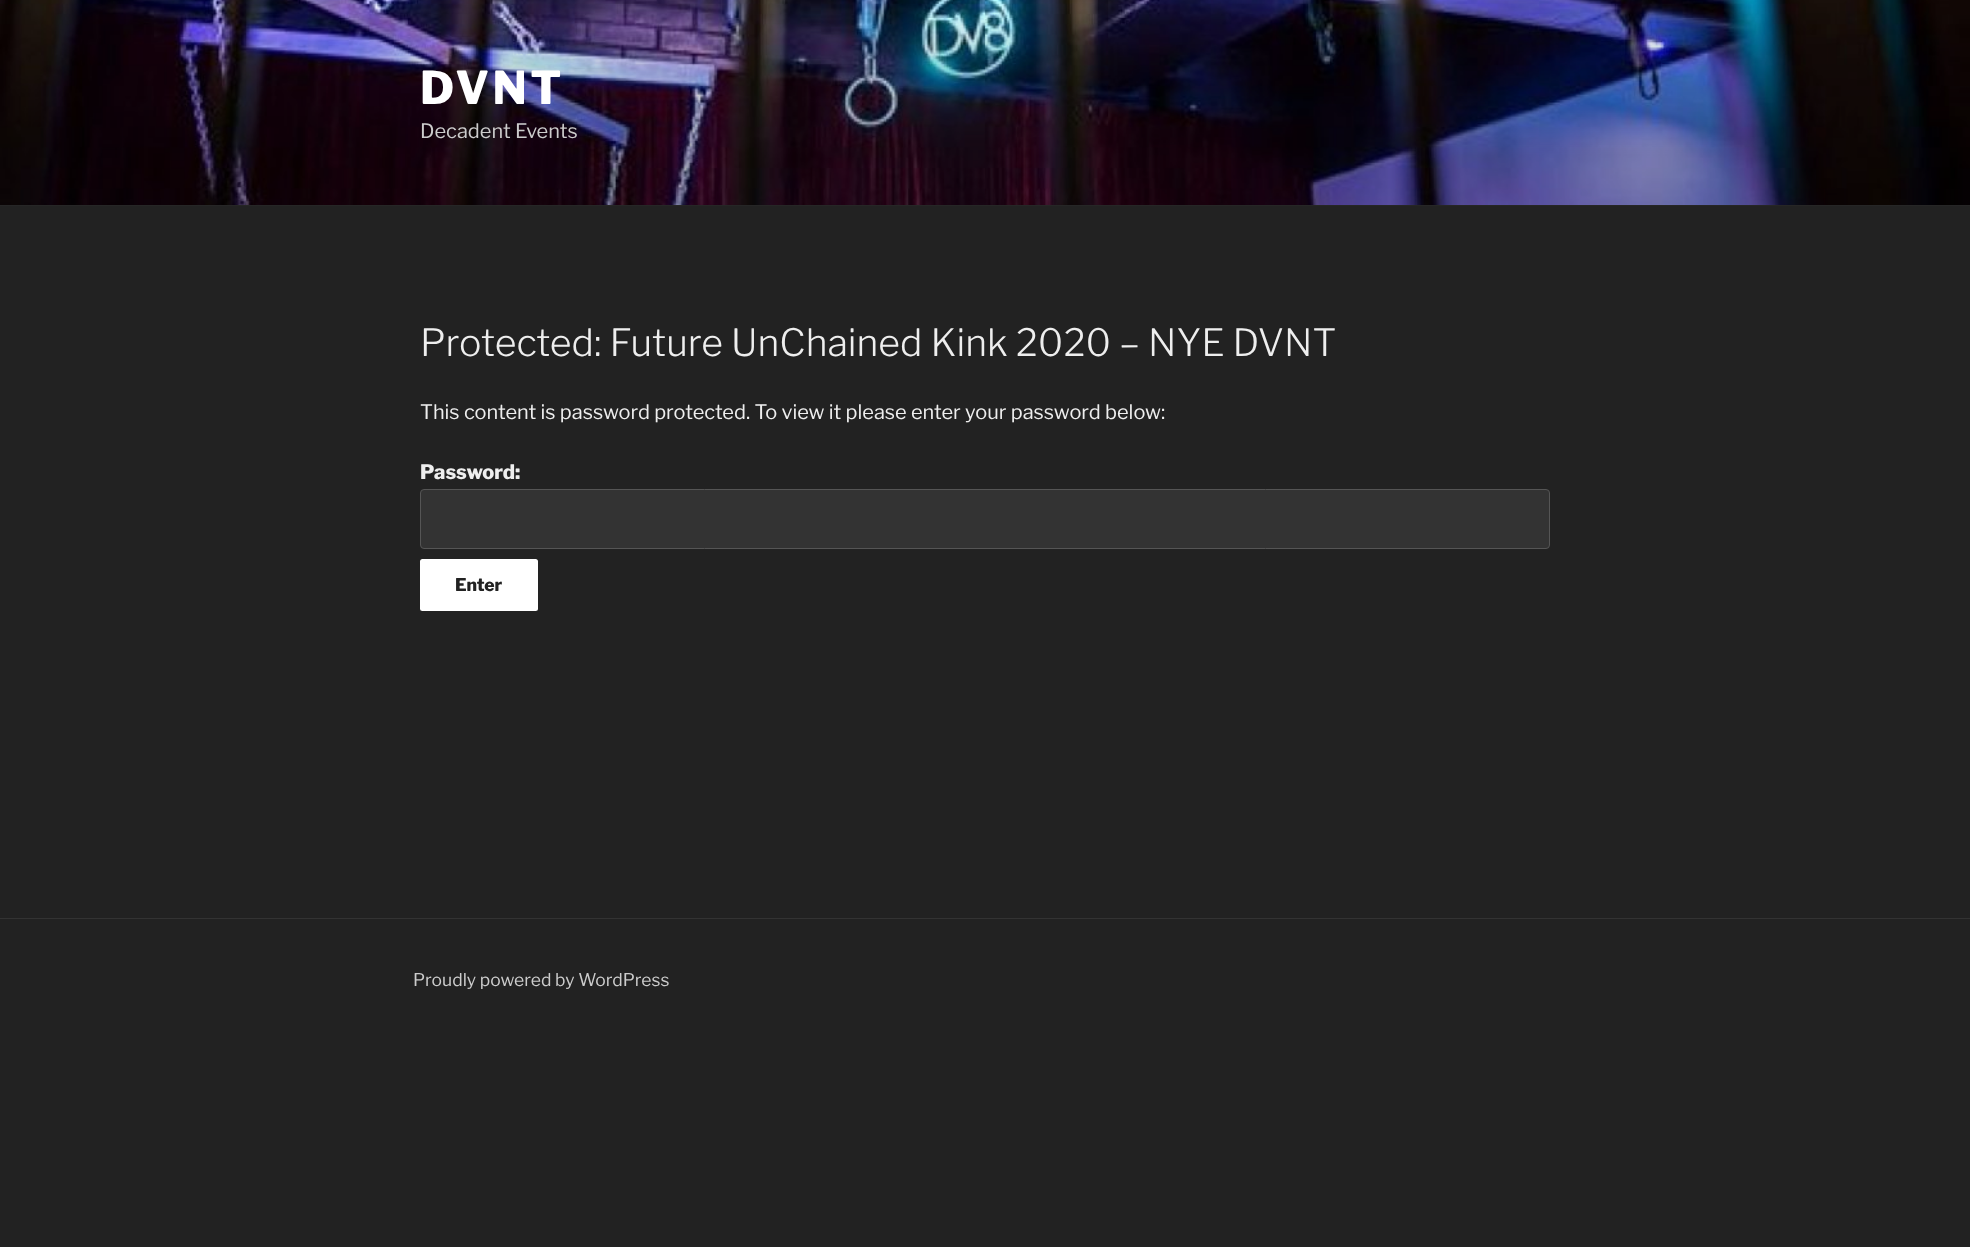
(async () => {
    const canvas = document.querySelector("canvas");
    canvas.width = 1970;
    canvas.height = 1247;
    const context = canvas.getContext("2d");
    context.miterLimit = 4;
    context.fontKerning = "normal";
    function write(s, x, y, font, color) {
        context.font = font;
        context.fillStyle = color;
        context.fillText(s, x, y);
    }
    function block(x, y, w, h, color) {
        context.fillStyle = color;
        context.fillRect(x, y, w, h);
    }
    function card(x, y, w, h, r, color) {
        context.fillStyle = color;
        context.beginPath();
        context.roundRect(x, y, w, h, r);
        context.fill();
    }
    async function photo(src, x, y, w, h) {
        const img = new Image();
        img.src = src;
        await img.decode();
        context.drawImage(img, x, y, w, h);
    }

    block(0, 0, 1970, 1247, "rgb(34, 34, 34)");
    block(0, 205, 1970, 1, "rgb(38, 38, 38)");
    await photo("media/1.png", 0, 0, 1970, 205);
    context.letterSpacing = "3.5px";
    write("DVNT", 420, 104, "800 45px Libre Franklin", "rgb(255, 255, 255)");
    context.letterSpacing = "0px";
    write("Decadent Events", 420, 138, "20px Libre Franklin", "rgb(204, 204, 204)");
    write("Protected: Future UnChained Kink 2020 – NYE DVNT", 420, 356, "300 37.5px Libre Franklin", "rgb(238, 238, 238)");
    write("This content is password protected. To view it please enter your password below:", 420, 419, "20px Libre Franklin", "rgb(238, 238, 238)");
    write("Password:", 420, 479, "800 20px Libre Franklin", "rgb(238, 238, 238)");
    context.fillStyle = "rgb(51, 51, 51)";
    context.beginPath();
    context.roundRect(420.5, 489.5, 1129, 59, 3.5);
    context.fill();
    context.strokeStyle = "rgb(85, 85, 85)";
    context.stroke();
    card(420, 559, 118, 52, 2.5, "rgb(255, 255, 255)");
    write("Enter", 455, 591, "800 17.5px Libre Franklin", "rgb(34, 34, 34)");
    block(0, 918, 1970, 1, "rgb(51, 51, 51)");
    write("Proudly powered by WordPress", 413, 986, "17.5px Libre Franklin", "rgb(204, 204, 204)");
})();
